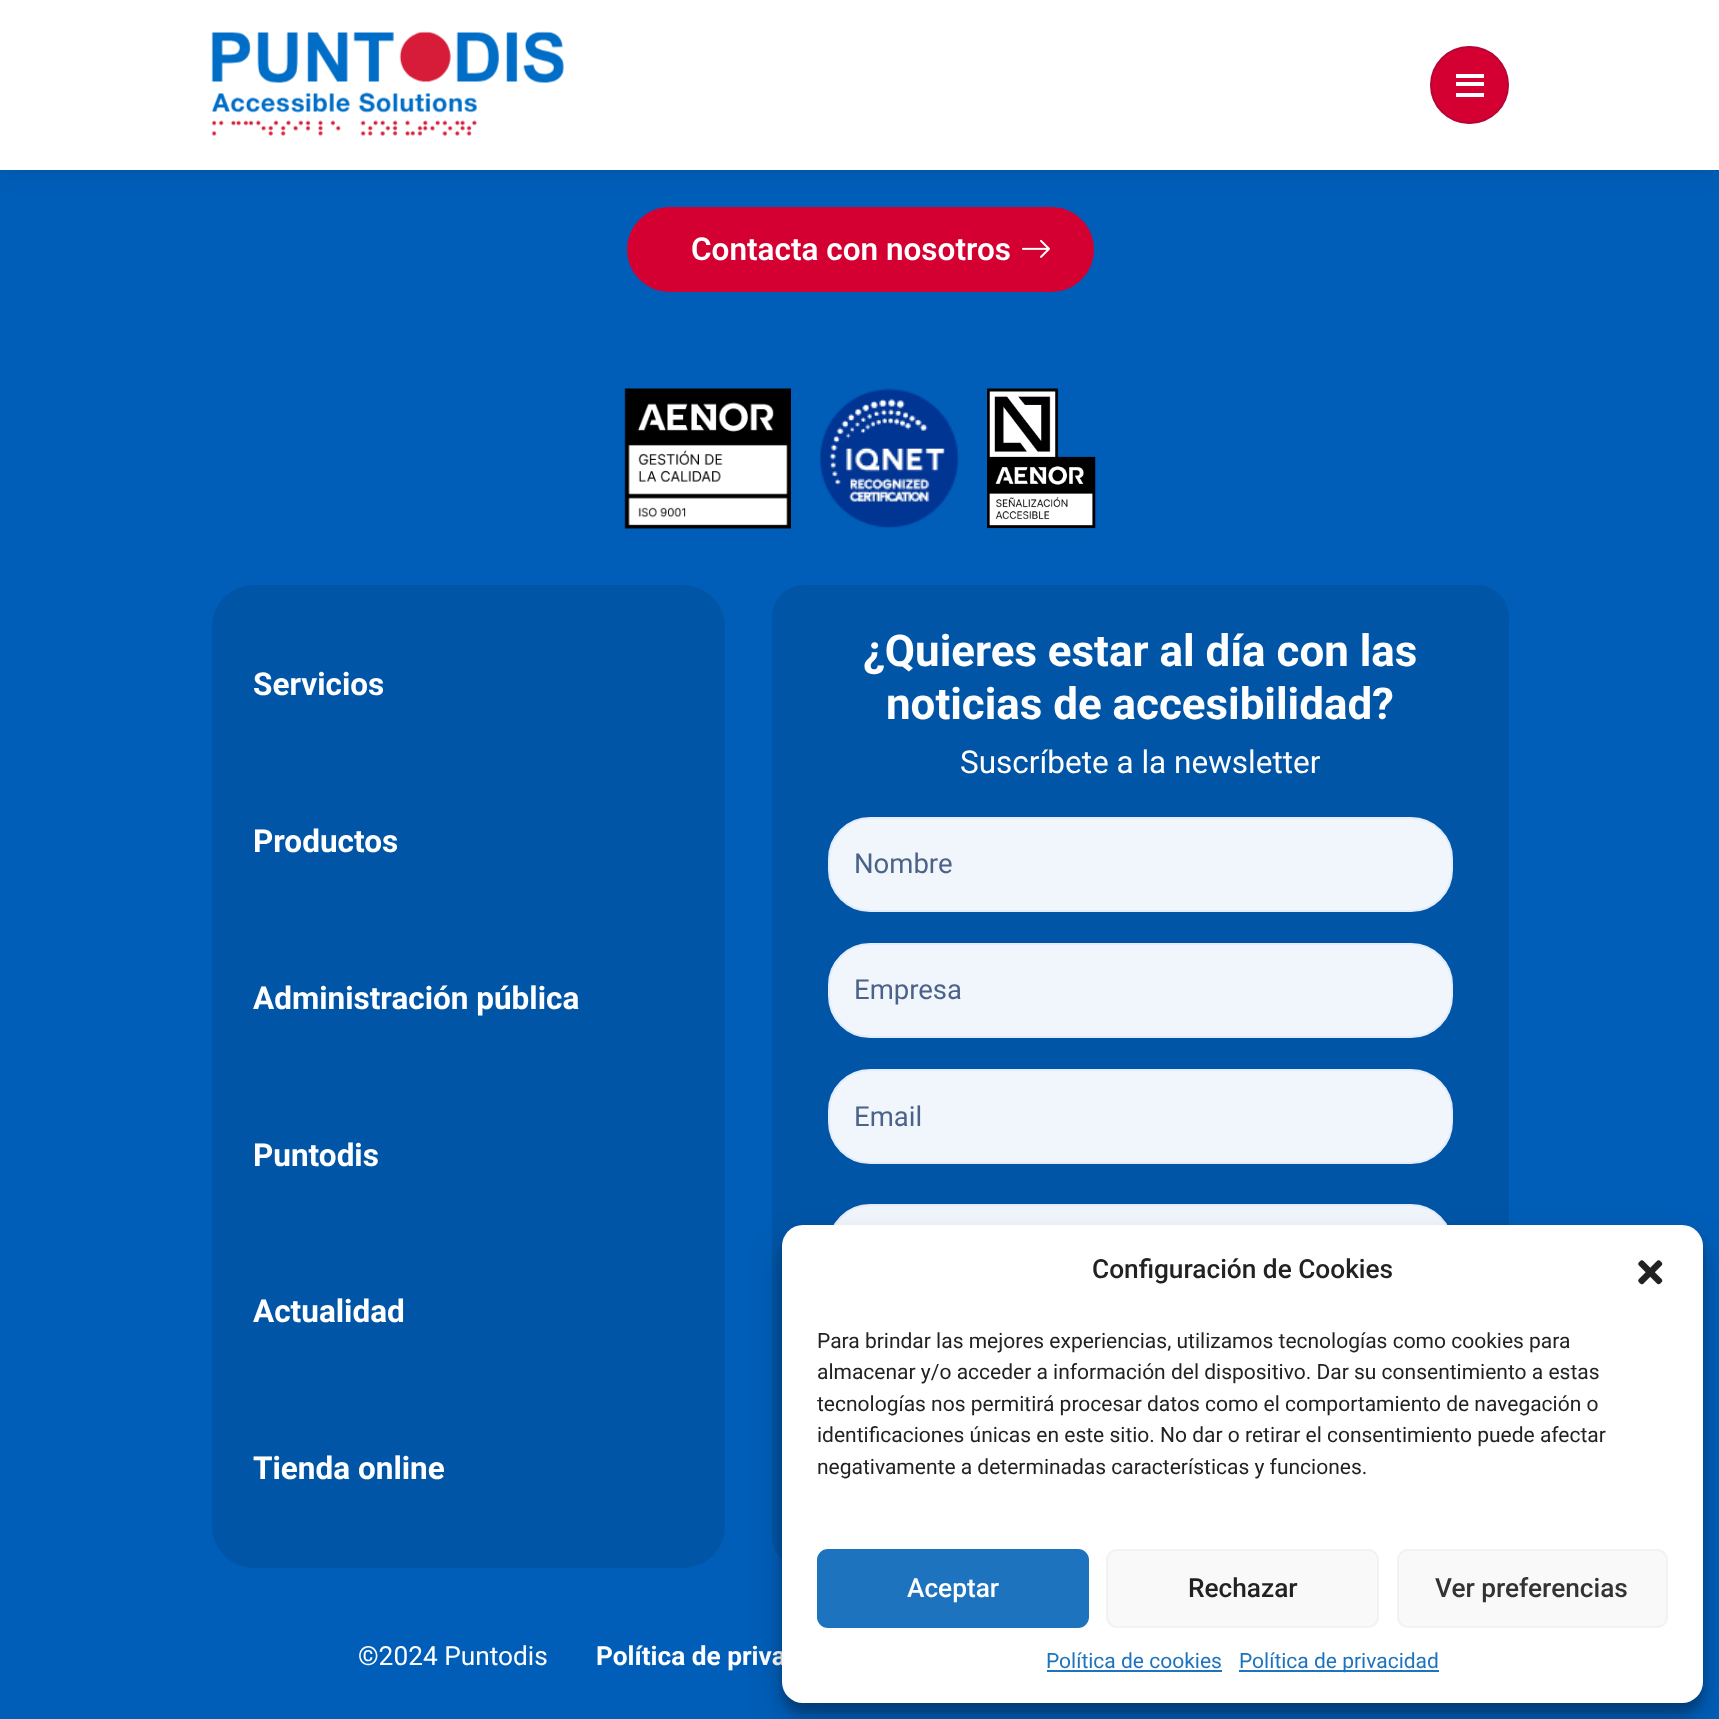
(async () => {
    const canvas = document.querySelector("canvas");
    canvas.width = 1719;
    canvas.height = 1719;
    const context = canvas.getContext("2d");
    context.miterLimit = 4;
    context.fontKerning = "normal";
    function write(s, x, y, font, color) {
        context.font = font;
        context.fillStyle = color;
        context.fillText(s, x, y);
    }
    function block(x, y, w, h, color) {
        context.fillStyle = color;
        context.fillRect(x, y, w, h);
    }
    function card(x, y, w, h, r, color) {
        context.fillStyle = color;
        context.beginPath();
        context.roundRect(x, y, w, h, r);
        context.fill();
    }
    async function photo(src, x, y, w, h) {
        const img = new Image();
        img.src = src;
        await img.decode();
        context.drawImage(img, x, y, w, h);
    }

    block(0, 0, 1719, 1719, "rgb(0, 94, 184)");
    context.fillStyle = "rgb(213, 0, 50)";
    context.beginPath();
    context.roundRect(628, 208, 465, 83, 41.5);
    context.fill();
    context.strokeStyle = "rgb(213, 0, 50)";
    context.lineWidth = 2;
    context.stroke();
    context.fillStyle = "rgba(0, 0, 0, 0.1)";
    context.filter = "blur(13px)";
    context.beginPath();
    context.rect(0, 0, 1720, 170);
    context.fill();
    context.filter = "none";
    block(0, 0, 1719, 170, "rgb(255, 255, 255)");
    await photo("media/1.png", 211, 31, 353, 105);
    card(1430, 46, 79, 78, 39, "rgb(213, 0, 50)");
    context.beginPath();
    context.roundRect(1431, 47, 77, 76, 38);
    context.strokeStyle = "rgba(4, 30, 73, 0.15)";
    context.stroke();
    block(1456, 82, 28, 4, "rgb(255, 255, 255)");
    block(1456, 74, 28, 4, "rgb(255, 255, 255)");
    block(1456, 93, 28, 4, "rgb(255, 255, 255)");
    write("Contacta con nosotros", 691, 260, "600 31.5px Roboto", "rgb(255, 255, 255)");
    await photo("media/2.png", 1022, 239, 28, 19);
    await photo("media/3.png", 624, 388, 167, 141);
    await photo("media/4.png", 819, 388, 140, 140);
    await photo("media/5.png", 987, 388, 109, 141);
    card(212, 585, 513, 983, 42, "rgb(0, 85, 166)");
    write("Servicios", 253, 695, "bold 31.5px Roboto", "rgb(255, 255, 255)");
    write("Productos", 253, 852, "bold 31.5px Roboto", "rgb(255, 255, 255)");
    write("Administración pública", 253, 1009, "bold 31.5px Roboto", "rgb(255, 255, 255)");
    write("Puntodis", 253, 1166, "bold 31.5px Roboto", "rgb(255, 255, 255)");
    write("Actualidad", 253, 1322, "bold 31.5px Roboto", "rgb(255, 255, 255)");
    write("Tienda online", 253, 1479, "bold 31.5px Roboto", "rgb(255, 255, 255)");
    card(772, 585, 737, 983, 32, "rgb(0, 85, 166)");
    write("¿Quieres estar al día con las", 863, 666, "bold 43.9px Roboto", "rgb(255, 255, 255)");
    write("noticias de accesibilidad?", 886, 719, "bold 43.9px Roboto", "rgb(255, 255, 255)");
    write("Suscríbete a la newsletter", 960, 773, "31.5px Roboto", "rgb(255, 255, 255)");
    context.fillStyle = "rgb(241, 246, 253)";
    context.beginPath();
    context.roundRect(829, 818, 623, 93, 41);
    context.fill();
    context.strokeStyle = "rgb(226, 236, 253)";
    context.stroke();
    write("Nombre", 854, 873, "27.5px Roboto", "rgb(76, 99, 137)");
    context.fillStyle = "rgb(241, 246, 253)";
    context.beginPath();
    context.roundRect(829, 944, 623, 93, 41);
    context.fill();
    context.stroke();
    write("Empresa", 854, 999, "27.5px Roboto", "rgb(76, 99, 137)");
    context.fillStyle = "rgb(241, 246, 253)";
    context.beginPath();
    context.roundRect(829, 1070, 623, 93, 41);
    context.fill();
    context.stroke();
    write("Email", 854, 1126, "27.5px Roboto", "rgb(76, 99, 137)");
    context.fillStyle = "rgb(241, 246, 253)";
    context.beginPath();
    context.roundRect(829, 1205, 623, 93, 41);
    context.fill();
    context.stroke();
    write("©2024 Puntodis", 358, 1665, "26.25px Roboto", "rgb(255, 255, 255)");
    write("Política de priva", 596, 1665, "bold 26.25px Roboto", "rgb(255, 255, 255)");
    context.fillStyle = "rgba(0, 0, 0, 0.23)";
    context.filter = "blur(5px)";
    context.beginPath();
    context.roundRect(782, 1236, 921, 477, 21);
    context.fill();
    context.filter = "none";
    context.fillStyle = "rgba(0, 0, 0, 0.19)";
    context.filter = "blur(17.5px)";
    context.beginPath();
    context.roundRect(782, 1243, 921, 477, 21);
    context.fill();
    context.filter = "none";
    card(782, 1225, 921, 478, 21, "rgb(255, 255, 255)");
    write("Configuración de Cookies", 1092, 1278, "500 26.25px Roboto", "rgb(34, 34, 34)");
    await photo("media/6.png", 1638, 1260, 25, 25);
    write("Para brindar las mejores experiencias, utilizamos tecnologías como cookies para", 817, 1348, "21px Roboto", "rgb(34, 34, 34)");
    write("almacenar y/o acceder a información del dispositivo. Dar su consentimiento a estas", 817, 1379, "21px Roboto", "rgb(34, 34, 34)");
    write("tecnologías nos permitirá procesar datos como el comportamiento de navegación o", 817, 1411, "21px Roboto", "rgb(34, 34, 34)");
    write("identificaciones únicas en este sitio. No dar o retirar el consentimiento puede afectar", 817, 1442, "21px Roboto", "rgb(34, 34, 34)");
    write("negativamente a determinadas características y funciones.", 817, 1474, "21px Roboto", "rgb(34, 34, 34)");
    context.fillStyle = "rgb(30, 115, 190)";
    context.beginPath();
    context.roundRect(818, 1550, 270, 77, 10);
    context.fill();
    context.strokeStyle = "rgb(30, 115, 190)";
    context.stroke();
    write("Aceptar", 907, 1597, "500 26.25px Roboto", "rgb(255, 255, 255)");
    context.fillStyle = "rgb(249, 249, 249)";
    context.beginPath();
    context.roundRect(1107, 1550, 271, 77, 10);
    context.fill();
    context.strokeStyle = "rgb(242, 242, 242)";
    context.stroke();
    write("Rechazar", 1188, 1597, "500 26.25px Roboto", "rgb(34, 34, 34)");
    context.fillStyle = "rgb(249, 249, 249)";
    context.beginPath();
    context.roundRect(1398, 1550, 269, 77, 10);
    context.fill();
    context.stroke();
    write("Ver preferencias", 1435, 1597, "500 26.25px Roboto", "rgb(51, 51, 51)");
    write("Política de cookies", 1046, 1668, "21px Roboto", "rgb(30, 115, 190)");
    block(1047, 1670, 175, 2, "rgb(30, 115, 190)");
    block(1239, 1670, 200, 2, "rgb(30, 115, 190)");
    write("Política de privacidad", 1239, 1668, "21px Roboto", "rgb(30, 115, 190)");
})();
